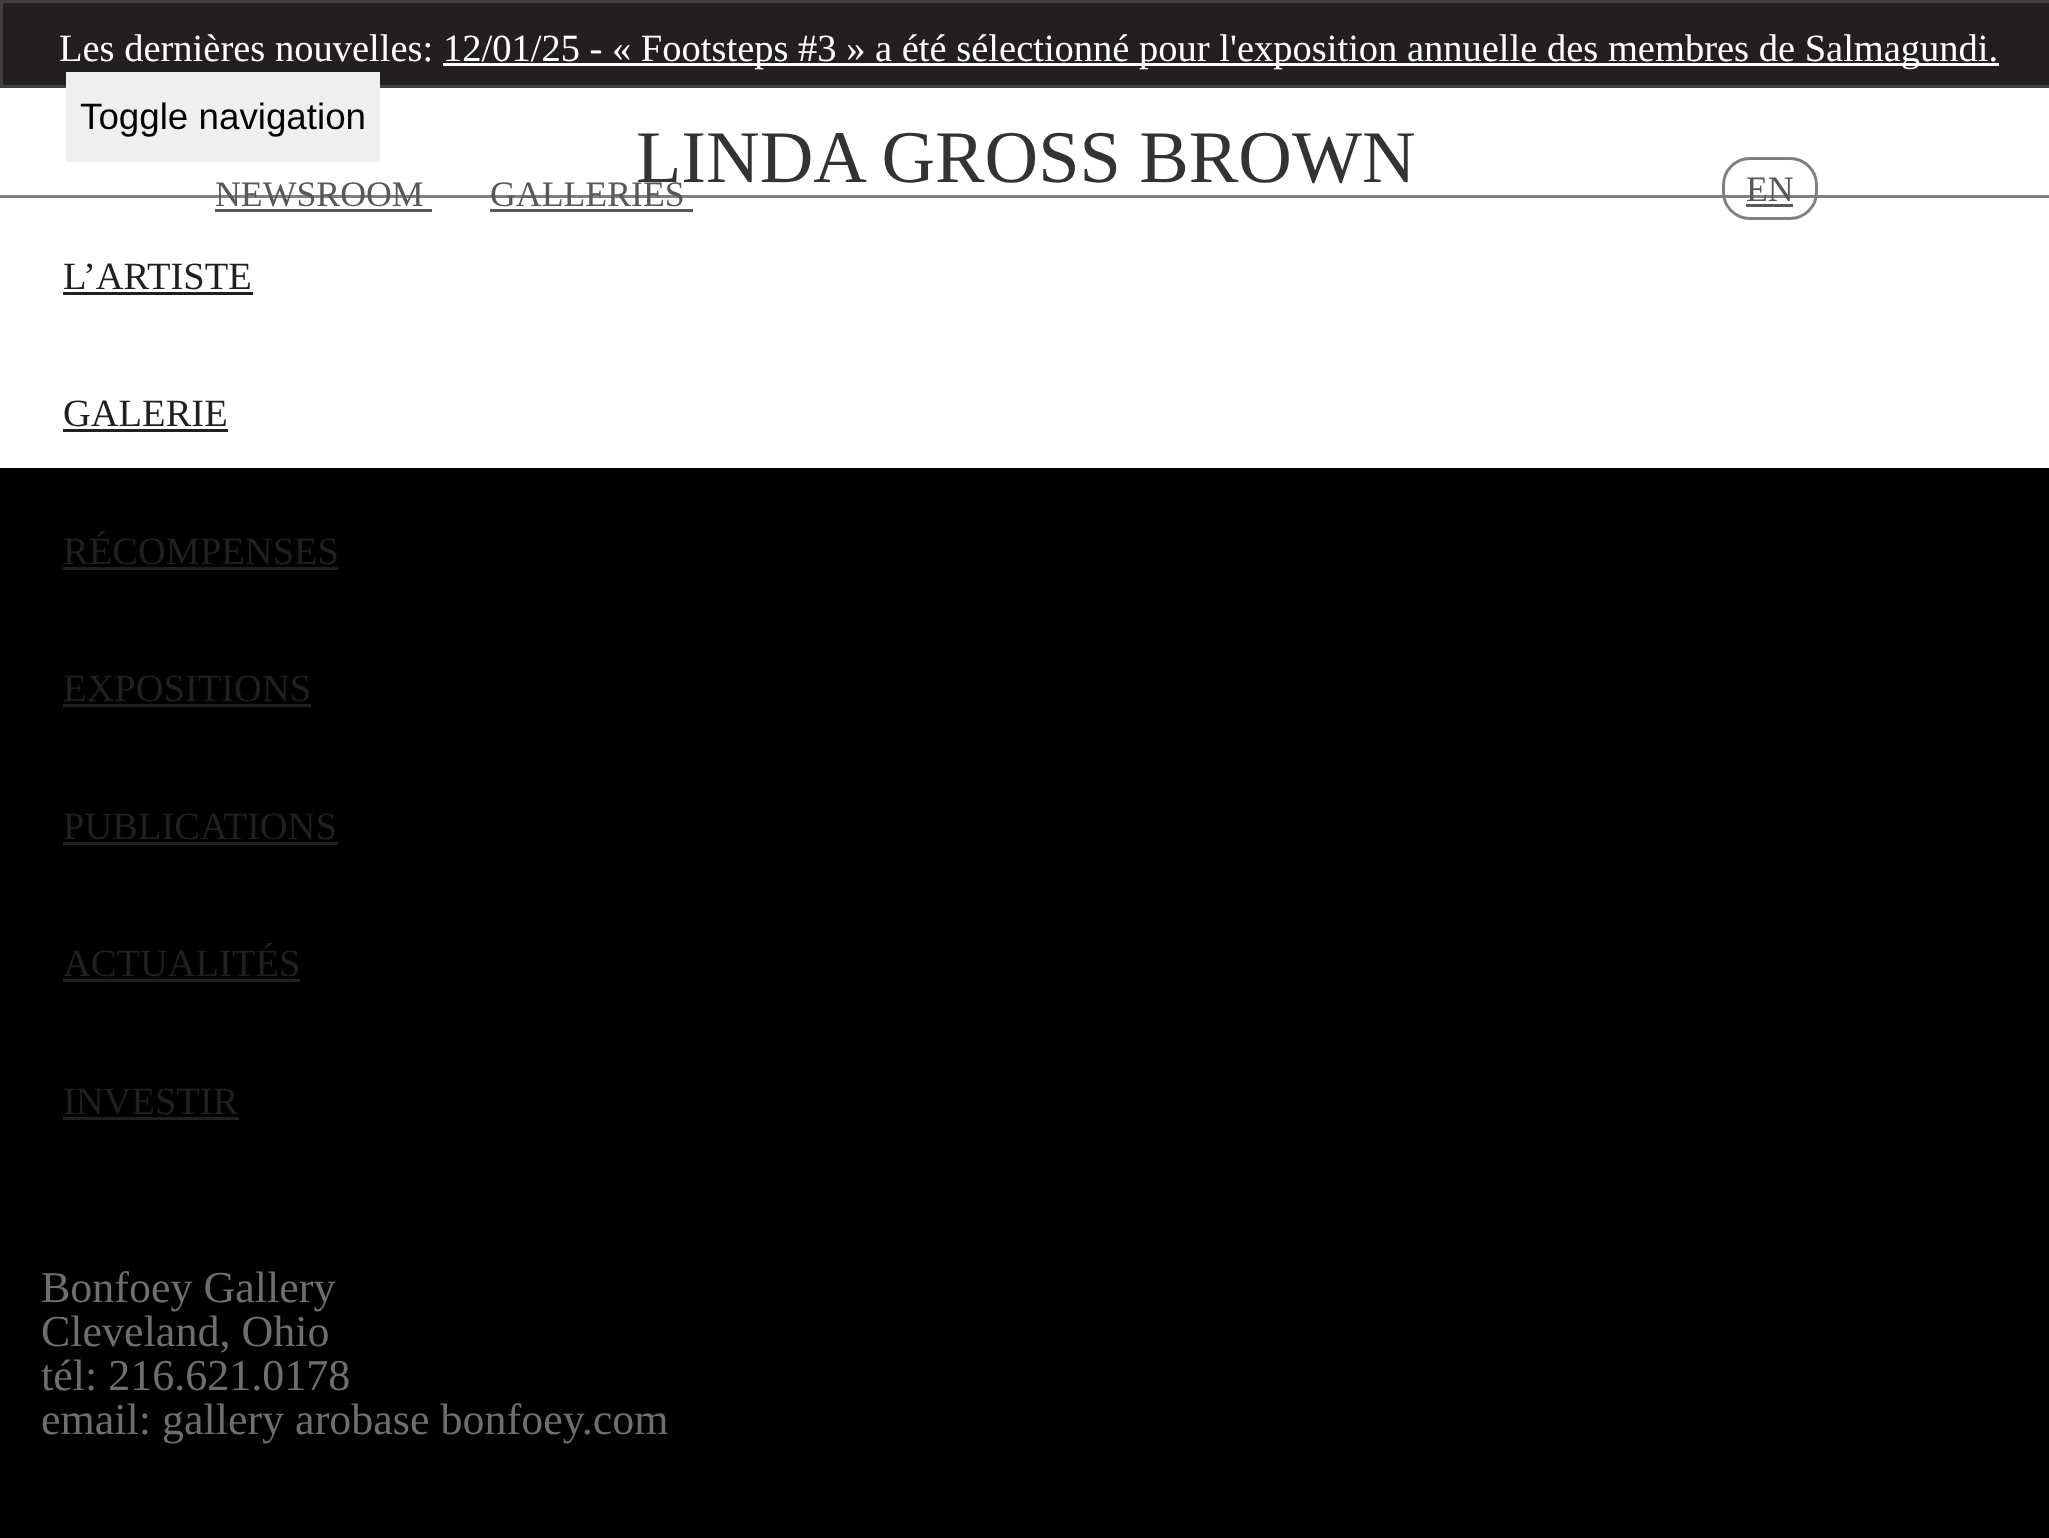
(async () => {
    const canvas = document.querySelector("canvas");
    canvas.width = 2049;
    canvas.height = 1538;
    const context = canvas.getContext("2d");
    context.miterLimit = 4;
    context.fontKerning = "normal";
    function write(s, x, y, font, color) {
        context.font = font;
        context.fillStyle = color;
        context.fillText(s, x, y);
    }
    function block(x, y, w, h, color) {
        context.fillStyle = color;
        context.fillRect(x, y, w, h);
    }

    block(0, 0, 2049, 1538, "rgb(0, 0, 0)");
    block(0, 88, 2049, 380, "rgb(255, 255, 255)");
    context.fillStyle = "rgb(35, 31, 32)";
    context.beginPath();
    context.rect(1.5, 1.5, 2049, 85);
    context.fill();
    context.strokeStyle = "rgb(63, 63, 64)";
    context.lineWidth = 3;
    context.stroke();
    write("Les dernières nouvelles:", 59, 61, "38.5px Liberation Serif", "rgb(255, 255, 255)");
    block(443, 63, 1556, 3, "rgb(255, 255, 255)");
    write("12/01/25 - « Footsteps #3 » a été sélectionné pour l'exposition annuelle des membres de Salmagundi.", 443, 61, "38.5px Liberation Serif", "rgb(255, 255, 255)");
    block(0, 195, 2049, 3, "rgb(128, 128, 128)");
    block(66, 72, 314, 90, "rgb(239, 239, 239)");
    write("Toggle navigation", 80, 129, "36.75px Liberation Sans", "rgb(0, 0, 0)");
    write("NEWSROOM", 215, 206, "35.75px Liberation Serif", "rgb(88, 88, 91)");
    block(215, 209, 217, 3, "rgb(88, 88, 91)");
    write("GALLERIES", 490, 206, "35.75px Liberation Serif", "rgb(88, 88, 91)");
    block(490, 209, 203, 3, "rgb(88, 88, 91)");
    context.beginPath();
    context.roundRect(1723.5, 158.5, 93, 60, 26.5);
    context.strokeStyle = "rgb(128, 128, 128)";
    context.stroke();
    write("EN", 1746, 201, "35.75px Liberation Serif", "rgb(88, 88, 91)");
    block(1746, 204, 47, 3, "rgb(88, 88, 91)");
    write("L’ARTISTE", 63, 289, "38.5px Liberation Serif", "rgb(35, 31, 32)");
    block(63, 292, 190, 3, "rgb(35, 31, 32)");
    write("GALERIE", 63, 426, "38.5px Liberation Serif", "rgb(35, 31, 32)");
    block(63, 429, 165, 3, "rgb(35, 31, 32)");
    write("RÉCOMPENSES", 63, 564, "38.5px Liberation Serif", "rgb(35, 31, 32)");
    block(63, 567, 275, 3, "rgb(35, 31, 32)");
    write("EXPOSITIONS", 63, 701, "38.5px Liberation Serif", "rgb(35, 31, 32)");
    block(63, 704, 248, 3, "rgb(35, 31, 32)");
    write("PUBLICATIONS", 63, 839, "38.5px Liberation Serif", "rgb(35, 31, 32)");
    block(63, 842, 275, 3, "rgb(35, 31, 32)");
    write("ACTUALITÉS", 63, 976, "38.5px Liberation Serif", "rgb(35, 31, 32)");
    block(63, 979, 237, 3, "rgb(35, 31, 32)");
    write("INVESTIR", 63, 1114, "38.5px Liberation Serif", "rgb(35, 31, 32)");
    block(63, 1117, 176, 3, "rgb(35, 31, 32)");
    write("LINDA GROSS BROWN", 636, 182, "74.25px Liberation Serif", "rgb(51, 51, 51)");
    write("Bonfoey Gallery", 41, 1302, "44px Liberation Serif", "rgb(109, 110, 112)");
    write("Cleveland, Ohio", 41, 1346, "44px Liberation Serif", "rgb(109, 110, 112)");
    write("tél: 216.621.0178", 41, 1390, "44px Liberation Serif", "rgb(109, 110, 112)");
    write("email: gallery arobase bonfoey.com", 41, 1434, "44px Liberation Serif", "rgb(109, 110, 112)");
})();
